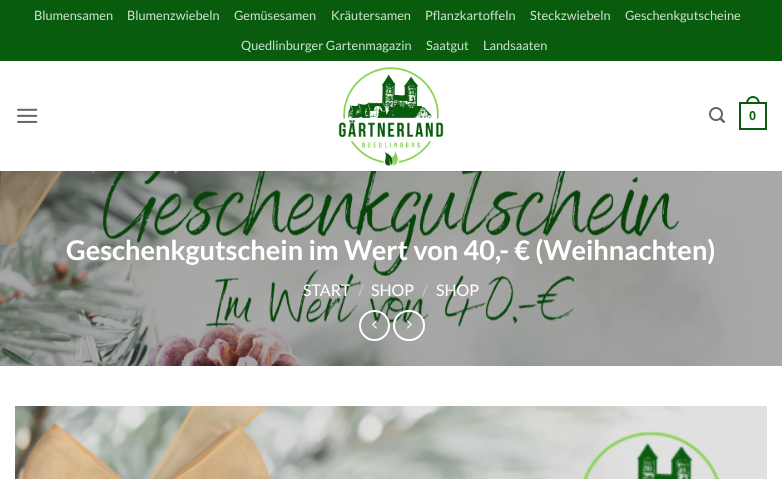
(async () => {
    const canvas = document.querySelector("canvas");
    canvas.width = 782;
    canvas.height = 479;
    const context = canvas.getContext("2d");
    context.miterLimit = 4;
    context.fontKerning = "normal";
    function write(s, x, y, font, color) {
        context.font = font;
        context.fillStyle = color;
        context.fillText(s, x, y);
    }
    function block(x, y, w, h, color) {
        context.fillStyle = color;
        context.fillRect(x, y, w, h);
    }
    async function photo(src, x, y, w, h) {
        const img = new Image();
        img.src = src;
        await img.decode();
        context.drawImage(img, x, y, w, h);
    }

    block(0, 0, 782, 479, "rgb(255, 255, 255)");
    block(0, 0, 782, 61, "rgb(9, 92, 13)");
    write("Blumensamen", 34, 20, "12.75px Lato", "rgb(206, 222, 207)");
    write("Blumenzwiebeln", 127, 20, "12.75px Lato", "rgb(206, 222, 207)");
    write("Gemüsesamen", 234, 20, "12.75px Lato", "rgb(206, 222, 207)");
    write("Kräutersamen", 331, 20, "12.75px Lato", "rgb(206, 222, 207)");
    write("Pflanzkartoffeln", 425, 20, "12.75px Lato", "rgb(206, 222, 207)");
    write("Steckzwiebeln", 530, 20, "12.75px Lato", "rgb(206, 222, 207)");
    write("Geschenkgutscheine", 625, 20, "12.75px Lato", "rgb(206, 222, 207)");
    write("Quedlinburger Gartenmagazin", 241, 50, "12.75px Lato", "rgb(206, 222, 207)");
    write("Saatgut", 426, 50, "12.75px Lato", "rgb(206, 222, 207)");
    write("Landsaaten", 483, 50, "12.75px Lato", "rgb(206, 222, 207)");
    await photo("media/1.png", 17, 108, 21, 15);
    await photo("media/2.png", 338, 67, 106, 99);
    await photo("media/3.png", 709, 107, 16, 16);
    context.strokeStyle = "rgb(9, 92, 13)";
    context.lineWidth = 2;
    context.strokeRect(740, 103, 26, 26);
    context.fillStyle = "rgb(9, 92, 13)";
    context.beginPath();
    context.moveTo(753, 96);
    context.bezierCurveTo(757.5, 96, 760, 100, 760, 104);
    context.lineTo(746, 104);
    context.bezierCurveTo(746, 100, 748.5, 96, 753, 96);
    context.closePath();
    context.moveTo(753, 98);
    context.bezierCurveTo(756.5, 98, 758, 101, 758, 104);
    context.lineTo(748, 104);
    context.bezierCurveTo(748, 101, 749.5, 98, 753, 98);
    context.closePath();
    context.fill("evenodd");
    write("0", 749, 120, "bold 12.75px Liberation Sans", "rgb(9, 92, 13)");
    await photo("media/4.png", 0, 171, 782, 195);
    block(15, 171, 752, 1, "rgba(74, 74, 74, 0.1)");
    write("Geschenkgutschein im Wert von 40,- € (Weihnachten)", 66, 260, "bold 27.2px Lato", "rgb(255, 255, 255)");
    write("START", 303, 296, "16px Lato", "rgb(255, 255, 255)");
    write("/", 358, 296, "16px Lato", "rgb(198, 198, 198)");
    write("SHOP", 371, 296, "16px Lato", "rgb(255, 255, 255)");
    write("/", 422, 296, "16px Lato", "rgb(198, 198, 198)");
    write("SHOP", 436, 296, "16px Lato", "rgb(255, 255, 255)");
    context.beginPath();
    context.arc(374.5, 325.5, 14.5, 0, Math.PI * 2);
    context.strokeStyle = "rgb(255, 255, 255)";
    context.stroke();
    await photo("media/5.png", 372, 320, 5, 9);
    context.beginPath();
    context.roundRect(394, 311, 30, 29, 14.5);
    context.stroke();
    await photo("media/6.png", 407, 320, 5, 9);
    await photo("media/7.png", 15, 406, 752, 73);
})();
